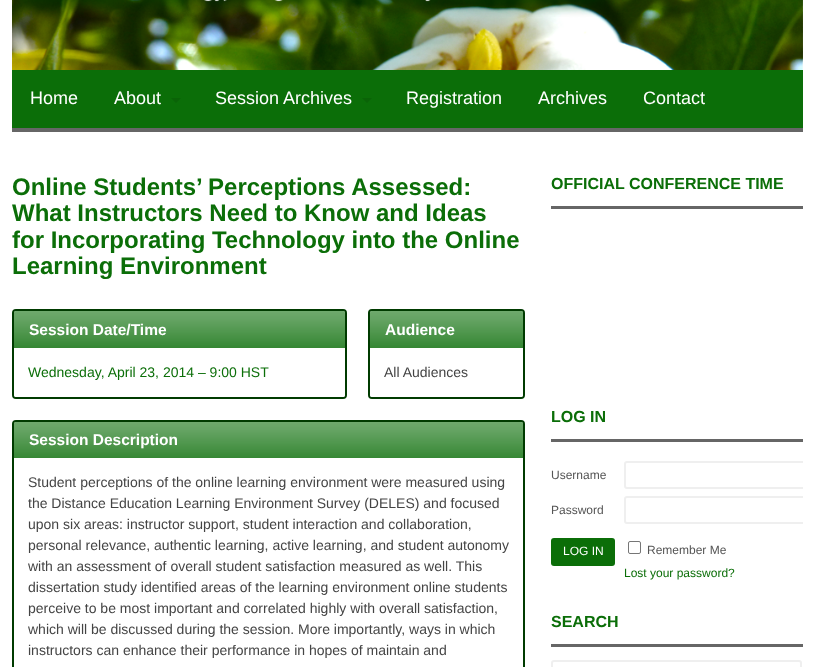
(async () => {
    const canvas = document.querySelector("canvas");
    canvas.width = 815;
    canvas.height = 667;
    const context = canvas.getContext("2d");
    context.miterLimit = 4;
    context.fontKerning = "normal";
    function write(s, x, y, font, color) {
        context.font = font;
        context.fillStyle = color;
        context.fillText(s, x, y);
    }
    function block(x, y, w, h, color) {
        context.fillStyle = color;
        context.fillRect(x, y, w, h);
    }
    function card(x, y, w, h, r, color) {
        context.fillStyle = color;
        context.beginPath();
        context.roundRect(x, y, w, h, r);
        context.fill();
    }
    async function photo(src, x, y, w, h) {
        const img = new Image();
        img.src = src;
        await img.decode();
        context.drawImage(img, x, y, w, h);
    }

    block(0, 0, 815, 667, "rgb(255, 255, 255)");
    await photo("media/1.png", 12, 0, 791, 70);
    block(12, 70, 791, 58, "rgb(11, 110, 8)");
    block(12, 128, 791, 4, "rgb(102, 102, 102)");
    write("Home", 30, 104, "18px Liberation Sans", "rgb(255, 255, 255)");
    write("About", 114, 104, "18px Liberation Sans", "rgb(255, 255, 255)");
    context.fillStyle = "rgb(10, 99, 7)";
    context.beginPath();
    context.moveTo(171, 98);
    context.lineTo(181, 98);
    context.lineTo(176, 103);
    context.closePath();
    context.fill();
    write("Session Archives", 215, 104, "18px Liberation Sans", "rgb(255, 255, 255)");
    context.fillStyle = "rgb(10, 99, 7)";
    context.beginPath();
    context.moveTo(362, 98);
    context.lineTo(372, 98);
    context.lineTo(367, 103);
    context.closePath();
    context.fill();
    write("Registration", 406, 104, "18px Liberation Sans", "rgb(255, 255, 255)");
    write("Archives", 538, 104, "18px Liberation Sans", "rgb(255, 255, 255)");
    write("Contact", 643, 104, "18px Liberation Sans", "rgb(255, 255, 255)");
    write("Online Students’ Perceptions Assessed:", 12, 195, "bold 24px Liberation Sans", "rgb(11, 110, 8)");
    write("What Instructors Need to Know and Ideas", 12, 221, "bold 24px Liberation Sans", "rgb(11, 110, 8)");
    write("for Incorporating Technology into the Online", 12, 248, "bold 24px Liberation Sans", "rgb(11, 110, 8)");
    write("Learning Environment", 12, 274, "bold 24px Liberation Sans", "rgb(11, 110, 8)");
    context.beginPath();
    context.roundRect(13, 310, 333, 88, 3);
    context.strokeStyle = "rgb(0, 59, 0)";
    context.lineWidth = 2;
    context.stroke();
    context.beginPath();
    context.roundRect(14, 311, 331, 37, [2, 2, 0, 0]);
    context.fill();
    await photo("media/2.png", 14, 311, 331, 37);
    write("Session Date/Time", 29, 335, "bold 15.5px Liberation Sans", "rgb(255, 255, 255)");
    context.beginPath();
    context.roundRect(14, 348, 331, 49, [0, 0, 2, 2]);
    context.fill();
    write("Wednesday, April 23, 2014 – 9:00 HST", 28, 377, "14px Liberation Sans", "rgb(11, 110, 8)");
    context.beginPath();
    context.roundRect(369, 310, 155, 88, 3);
    context.stroke();
    context.beginPath();
    context.roundRect(370, 311, 153, 37, [2, 2, 0, 0]);
    context.fill();
    await photo("media/3.png", 370, 311, 153, 37);
    write("Audience", 385, 335, "bold 15.5px Liberation Sans", "rgb(255, 255, 255)");
    context.beginPath();
    context.roundRect(370, 348, 153, 49, [0, 0, 2, 2]);
    context.fill();
    write("All Audiences", 384, 377, "14px Liberation Sans", "rgb(68, 68, 68)");
    context.beginPath();
    context.roundRect(13, 421, 511, 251, 3);
    context.stroke();
    context.fillStyle = "rgb(11, 110, 8)";
    context.beginPath();
    context.roundRect(14, 422, 509, 36, [2, 2, 0, 0]);
    context.fill();
    await photo("media/4.png", 14, 422, 509, 36);
    write("Session Description", 29, 445, "bold 15.5px Liberation Sans", "rgb(255, 255, 255)");
    write("Student perceptions of the online learning environment were measured using", 28, 487, "14px Liberation Sans", "rgb(68, 68, 68)");
    write("the Distance Education Learning Environment Survey (DELES) and focused", 28, 508, "14px Liberation Sans", "rgb(68, 68, 68)");
    write("upon six areas: instructor support, student interaction and collaboration,", 28, 529, "14px Liberation Sans", "rgb(68, 68, 68)");
    write("personal relevance, authentic learning, active learning, and student autonomy", 28, 550, "14px Liberation Sans", "rgb(68, 68, 68)");
    write("with an assessment of overall student satisfaction measured as well. This", 28, 571, "14px Liberation Sans", "rgb(68, 68, 68)");
    write("dissertation study identified areas of the learning environment online students", 28, 592, "14px Liberation Sans", "rgb(68, 68, 68)");
    write("perceive to be most important and correlated highly with overall satisfaction,", 28, 613, "14px Liberation Sans", "rgb(68, 68, 68)");
    write("which will be discussed during the session. More importantly, ways in which", 28, 634, "14px Liberation Sans", "rgb(68, 68, 68)");
    write("instructors can enhance their performance in hopes of maintain and", 28, 655, "14px Liberation Sans", "rgb(68, 68, 68)");
    block(551, 206, 252, 3, "rgb(102, 102, 102)");
    write("OFFICIAL CONFERENCE TIME", 551, 189, "bold 16px Liberation Sans", "rgb(11, 110, 8)");
    block(551, 439, 252, 3, "rgb(102, 102, 102)");
    write("LOG IN", 551, 422, "bold 16px Liberation Sans", "rgb(11, 110, 8)");
    write("Username", 551, 479, "12px Liberation Sans", "rgb(85, 85, 85)");
    context.save();
    context.beginPath();
    context.rect(551, 174, 252, 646);
    context.clip();
    context.beginPath();
    context.roundRect(625, 462, 181, 26, 2);
    context.strokeStyle = "rgb(239, 239, 239)";
    context.stroke();
    context.restore();
    write("Password", 551, 514, "12px Liberation Sans", "rgb(85, 85, 85)");
    context.save();
    context.beginPath();
    context.rect(551, 174, 252, 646);
    context.clip();
    context.beginPath();
    context.roundRect(625, 497, 181, 26, 2);
    context.strokeStyle = "rgb(239, 239, 239)";
    context.stroke();
    context.restore();
    card(551, 538, 64, 28, 3, "rgb(11, 110, 8)");
    write("LOG IN", 563, 555, "12px Liberation Sans", "rgb(255, 255, 255)");
    context.beginPath();
    context.roundRect(628.5, 541.5, 12, 12, 1.5);
    context.strokeStyle = "rgb(118, 118, 118)";
    context.lineWidth = 1;
    context.stroke();
    write("Remember Me", 647, 554, "12px Liberation Sans", "rgb(85, 85, 85)");
    write("Lost your password?", 624, 577, "12px Liberation Sans", "rgb(11, 110, 8)");
    block(551, 644, 252, 3, "rgb(102, 102, 102)");
    write("SEARCH", 551, 627, "bold 16px Liberation Sans", "rgb(11, 110, 8)");
    context.beginPath();
    context.roundRect(552, 661, 249, 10, 2);
    context.strokeStyle = "rgb(239, 239, 239)";
    context.lineWidth = 2;
    context.stroke();
})();
